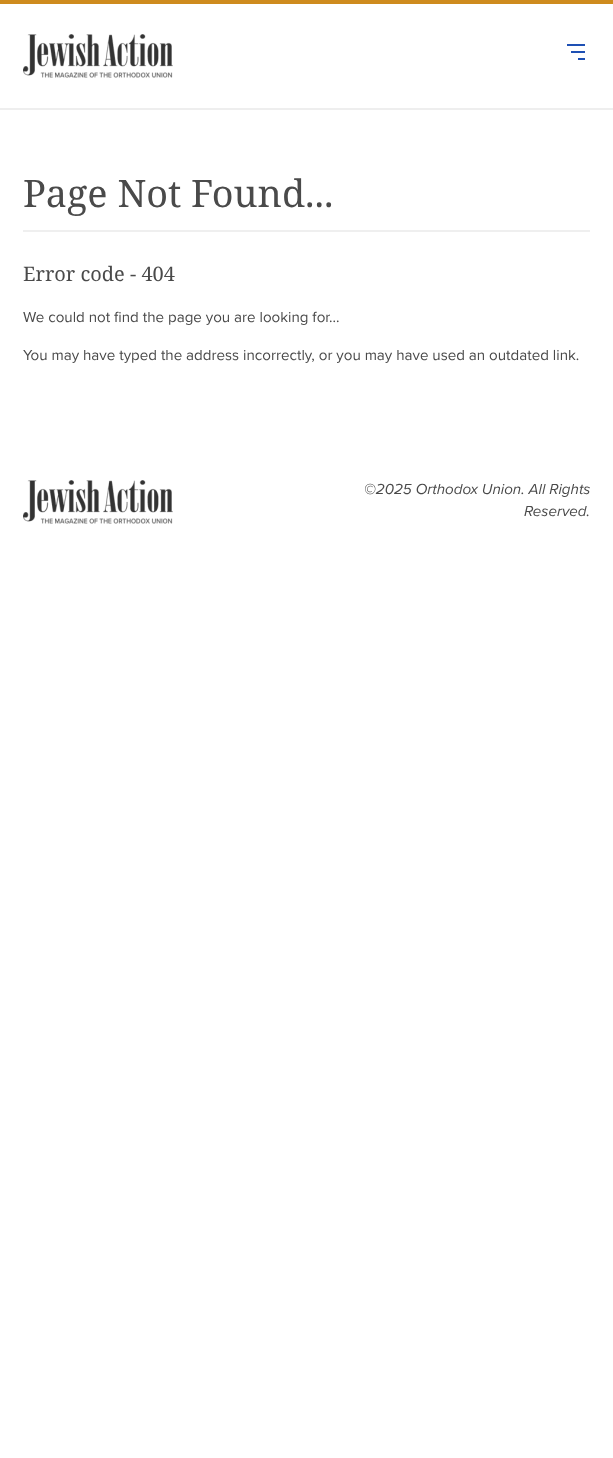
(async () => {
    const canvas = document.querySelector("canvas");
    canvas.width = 613;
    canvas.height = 1458;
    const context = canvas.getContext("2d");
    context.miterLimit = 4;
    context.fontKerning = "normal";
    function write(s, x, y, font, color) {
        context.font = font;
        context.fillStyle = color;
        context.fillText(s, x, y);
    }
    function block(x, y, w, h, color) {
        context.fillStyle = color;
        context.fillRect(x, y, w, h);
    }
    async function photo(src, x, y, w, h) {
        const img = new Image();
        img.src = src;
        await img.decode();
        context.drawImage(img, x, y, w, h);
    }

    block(0, 0, 613, 1458, "rgb(255, 255, 255)");
    block(0, 0, 613, 4, "rgb(206, 139, 30)");
    block(0, 108, 613, 2, "rgb(238, 238, 238)");
    await photo("media/1.png", 23, 34, 150, 44);
    block(567, 44, 18, 2, "rgb(30, 80, 180)");
    block(571, 51, 14, 2, "rgb(30, 80, 180)");
    block(578, 58, 7, 2, "rgb(30, 80, 180)");
    block(23, 230, 567, 2, "rgb(239, 239, 239)");
    write("Page Not Found...", 23, 207, "37.75px Noto Serif", "rgb(74, 74, 74)");
    write("Error code - 404", 23, 281, "20px Noto Serif", "rgb(74, 74, 74)");
    write("We could not find the page you are looking for...", 23, 322, "15.15px Proxima Nova", "rgb(74, 74, 74)");
    write("You may have typed the address incorrectly, or you may have used an outdated link.", 23, 360, "15.15px Proxima Nova", "rgb(74, 74, 74)");
    await photo("media/1.png", 23, 480, 150, 44);
    write("©2025 Orthodox Union. All Rights", 364, 494, "italic 15.15px Proxima Nova", "rgb(74, 74, 74)");
    write("Reserved.", 524, 516, "italic 15.15px Proxima Nova", "rgb(74, 74, 74)");
})();
